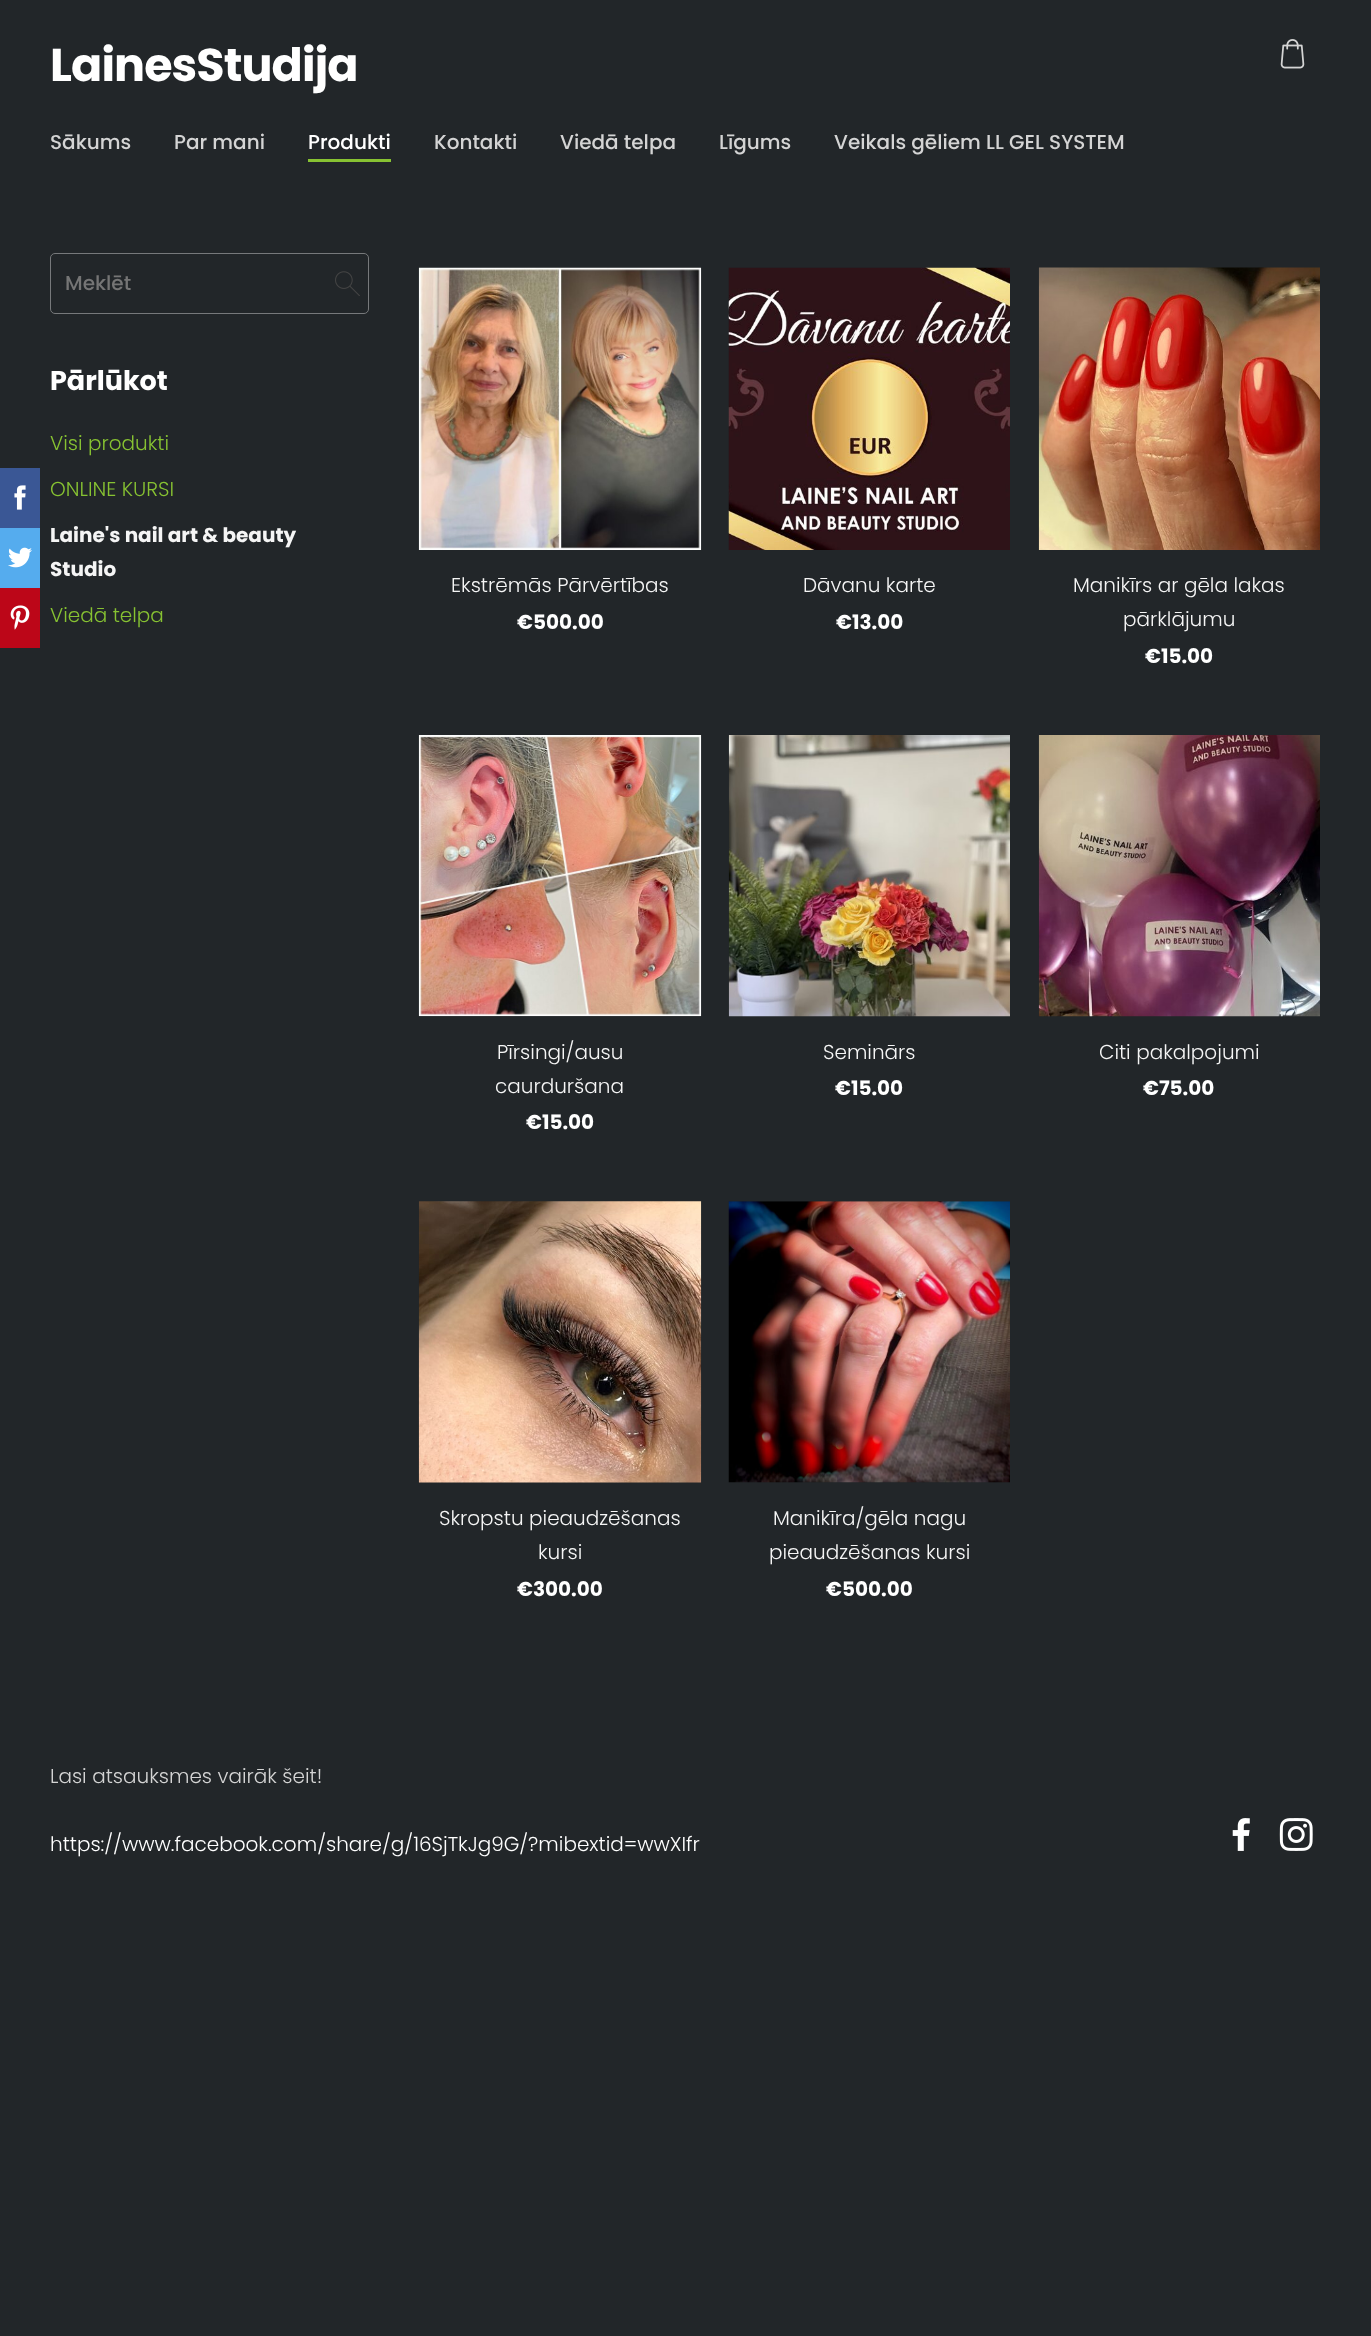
(async () => {
    const canvas = document.querySelector("canvas");
    canvas.width = 1371;
    canvas.height = 2336;
    const context = canvas.getContext("2d");
    context.miterLimit = 4;
    context.fontKerning = "normal";
    function write(s, x, y, font, color) {
        context.font = font;
        context.fillStyle = color;
        context.fillText(s, x, y);
    }
    function block(x, y, w, h, color) {
        context.fillStyle = color;
        context.fillRect(x, y, w, h);
    }
    async function photo(src, x, y, w, h) {
        const img = new Image();
        img.src = src;
        await img.decode();
        context.drawImage(img, x, y, w, h);
    }

    block(0, 0, 1371, 2336, "rgb(34, 38, 41)");
    block(0, 468, 40, 60, "rgb(58, 87, 149)");
    await photo("media/1.png", 14, 485, 12, 25);
    block(0, 528, 40, 60, "rgb(85, 172, 238)");
    await photo("media/2.png", 8, 547, 24, 21);
    block(0, 588, 40, 60, "rgb(188, 6, 24)");
    await photo("media/3.png", 10, 605, 20, 25);
    context.letterSpacing = "-0.9px";
    write("LainesStudija", 50, 81, "bold 46px Poppins", "rgb(255, 255, 255)");
    context.letterSpacing = "0px";
    write("Sākums", 50, 149, "500 20px Poppins", "rgb(212, 212, 212)");
    write("Par mani", 174, 149, "500 20px Poppins", "rgb(212, 212, 212)");
    write("Produkti", 308, 149, "500 20px Poppins", "rgb(255, 255, 255)");
    block(308, 159, 83, 3, "rgb(135, 194, 50)");
    write("Kontakti", 434, 149, "500 20px Poppins", "rgb(212, 212, 212)");
    write("Viedā telpa", 560, 149, "500 20px Poppins", "rgb(212, 212, 212)");
    write("Līgums", 719, 149, "500 20px Poppins", "rgb(212, 212, 212)");
    write("Veikals gēliem LL GEL SYSTEM", 834, 149, "500 20px Poppins", "rgb(212, 212, 212)");
    await photo("media/4.png", 1280, 39, 25, 30);
    context.beginPath();
    context.roundRect(50.5, 253.5, 318, 60, 4.5);
    context.strokeStyle = "rgb(119, 121, 123)";
    context.stroke();
    write("Meklēt", 65, 290, "500 20px Poppins", "rgb(117, 117, 117)");
    await photo("media/5.png", 335, 271, 25, 25);
    write("Pārlūkot", 50, 390, "bold 27px Poppins", "rgb(255, 255, 255)");
    write("Visi produkti", 50, 450, "300 20px Poppins", "rgb(135, 194, 50)");
    write("ONLINE KURSI", 50, 496, "300 20px Poppins", "rgb(135, 194, 50)");
    write("Laine's nail art & beauty", 50, 542, "bold 20px Poppins", "rgb(245, 245, 245)");
    write("Studio", 50, 576, "bold 20px Poppins", "rgb(245, 245, 245)");
    write("Viedā telpa", 50, 622, "300 20px Poppins", "rgb(135, 194, 50)");
    await photo("media/6.png", 418, 267, 284, 283);
    write("Ekstrēmās Pārvērtības", 451, 592, "300 20px Poppins", "rgb(245, 245, 245)");
    write("€500.00", 517, 629, "bold 20px Poppins", "rgb(255, 255, 255)");
    await photo("media/7.png", 728, 267, 282, 283);
    write("Dāvanu karte", 803, 592, "300 20px Poppins", "rgb(245, 245, 245)");
    write("€13.00", 836, 629, "bold 20px Poppins", "rgb(255, 255, 255)");
    await photo("media/8.png", 1038, 267, 282, 283);
    write("Manikīrs ar gēla lakas", 1073, 592, "300 20px Poppins", "rgb(245, 245, 245)");
    write("pārklājumu", 1123, 626, "300 20px Poppins", "rgb(245, 245, 245)");
    write("€15.00", 1145, 663, "bold 20px Poppins", "rgb(255, 255, 255)");
    await photo("media/9.png", 418, 735, 284, 282);
    write("Pīrsingi/ausu", 497, 1059, "300 20px Poppins", "rgb(245, 245, 245)");
    write("caurduršana", 495, 1093, "300 20px Poppins", "rgb(245, 245, 245)");
    write("€15.00", 526, 1129, "bold 20px Poppins", "rgb(255, 255, 255)");
    await photo("media/10.png", 728, 735, 282, 282);
    write("Seminārs", 823, 1059, "300 20px Poppins", "rgb(245, 245, 245)");
    write("€15.00", 835, 1095, "bold 20px Poppins", "rgb(255, 255, 255)");
    await photo("media/11.png", 1038, 735, 282, 282);
    write("Citi pakalpojumi", 1099, 1059, "300 20px Poppins", "rgb(245, 245, 245)");
    write("€75.00", 1143, 1095, "bold 20px Poppins", "rgb(255, 255, 255)");
    await photo("media/12.png", 418, 1201, 284, 282);
    write("Skropstu pieaudzēšanas", 439, 1525, "300 20px Poppins", "rgb(245, 245, 245)");
    write("kursi", 538, 1559, "300 20px Poppins", "rgb(245, 245, 245)");
    write("€300.00", 517, 1596, "bold 20px Poppins", "rgb(255, 255, 255)");
    await photo("media/13.png", 728, 1201, 282, 282);
    write("Manikīra/gēla nagu", 773, 1525, "300 20px Poppins", "rgb(245, 245, 245)");
    write("pieaudzēšanas kursi", 769, 1559, "300 20px Poppins", "rgb(245, 245, 245)");
    write("€500.00", 826, 1596, "bold 20px Poppins", "rgb(255, 255, 255)");
    write("Lasi atsauksmes vairāk šeit!", 50, 1783, "300 20px Poppins", "rgb(212, 212, 212)");
    write("https://www.facebook.com/share/g/16SjTkJg9G/?mibextid=wwXIfr", 50, 1851, "300 20px Poppins", "rgb(255, 255, 255)");
    await photo("media/14.png", 1232, 1818, 18, 33);
    await photo("media/15.png", 1279, 1818, 34, 33);
})();
